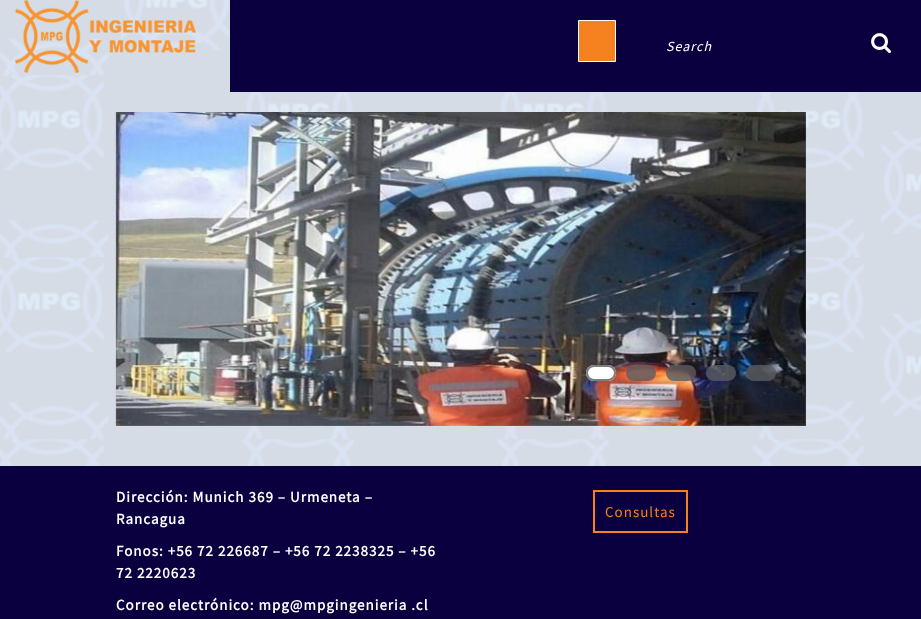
(async () => {
    const canvas = document.querySelector("canvas");
    canvas.width = 921;
    canvas.height = 619;
    const context = canvas.getContext("2d");
    context.miterLimit = 4;
    context.fontKerning = "normal";
    function write(s, x, y, font, color) {
        context.font = font;
        context.fillStyle = color;
        context.fillText(s, x, y);
    }
    function block(x, y, w, h, color) {
        context.fillStyle = color;
        context.fillRect(x, y, w, h);
    }
    function card(x, y, w, h, r, color) {
        context.fillStyle = color;
        context.beginPath();
        context.roundRect(x, y, w, h, r);
        context.fill();
    }
    async function photo(src, x, y, w, h) {
        const img = new Image();
        img.src = src;
        await img.decode();
        context.drawImage(img, x, y, w, h);
    }

    block(0, 0, 921, 619, "rgb(255, 255, 255)");
    await photo("media/1.png", 0, 0, 921, 466);
    await photo("media/2.png", 15, 0, 181, 73);
    block(230, 0, 691, 92, "rgb(10, 0, 63)");
    context.fillStyle = "rgb(246, 129, 33)";
    context.beginPath();
    context.rect(578.5, 20.5, 37, 41);
    context.fill();
    context.strokeStyle = "rgb(255, 255, 255)";
    context.stroke();
    context.letterSpacing = "1px";
    write("Search", 666, 51, "italic 14px Source Sans Pro", "rgb(255, 255, 255)");
    await photo("media/3.png", 871, 33, 20, 20);
    await photo("media/4.png", 115, 112, 691, 314);
    card(586, 365, 30, 16, 8, "rgb(255, 255, 255)");
    context.beginPath();
    context.roundRect(587, 366, 28, 14, 7);
    context.strokeStyle = "rgba(91, 92, 97, 0.8)";
    context.lineWidth = 2;
    context.stroke();
    card(626, 365, 30, 16, 8, "rgba(91, 92, 97, 0.8)");
    card(666, 365, 30, 16, 8, "rgba(91, 92, 97, 0.8)");
    card(706, 365, 30, 16, 8, "rgba(91, 92, 97, 0.8)");
    card(746, 365, 30, 16, 8, "rgba(91, 92, 97, 0.8)");
    block(0, 466, 921, 153, "rgb(10, 0, 63)");
    write("Dirección: Munich 369 – Urmeneta –", 116, 502, "bold 15px Source Sans Pro", "rgb(255, 255, 255)");
    write("Rancagua", 116, 524, "bold 15px Source Sans Pro", "rgb(255, 255, 255)");
    write("Fonos: +56 72 226687 – +56 72 2238325 – +56", 116, 556, "bold 15px Source Sans Pro", "rgb(255, 255, 255)");
    write("72 2220623", 116, 578, "bold 15px Source Sans Pro", "rgb(255, 255, 255)");
    write("Correo electrónico: mpg@mpgingenieria .cl", 116, 610, "bold 15px Source Sans Pro", "rgb(255, 255, 255)");
    context.strokeStyle = "rgb(246, 129, 33)";
    context.strokeRect(594, 491, 93, 41);
    write("Consultas", 605, 517, "15px Source Sans Pro", "rgb(246, 129, 33)");
})();
